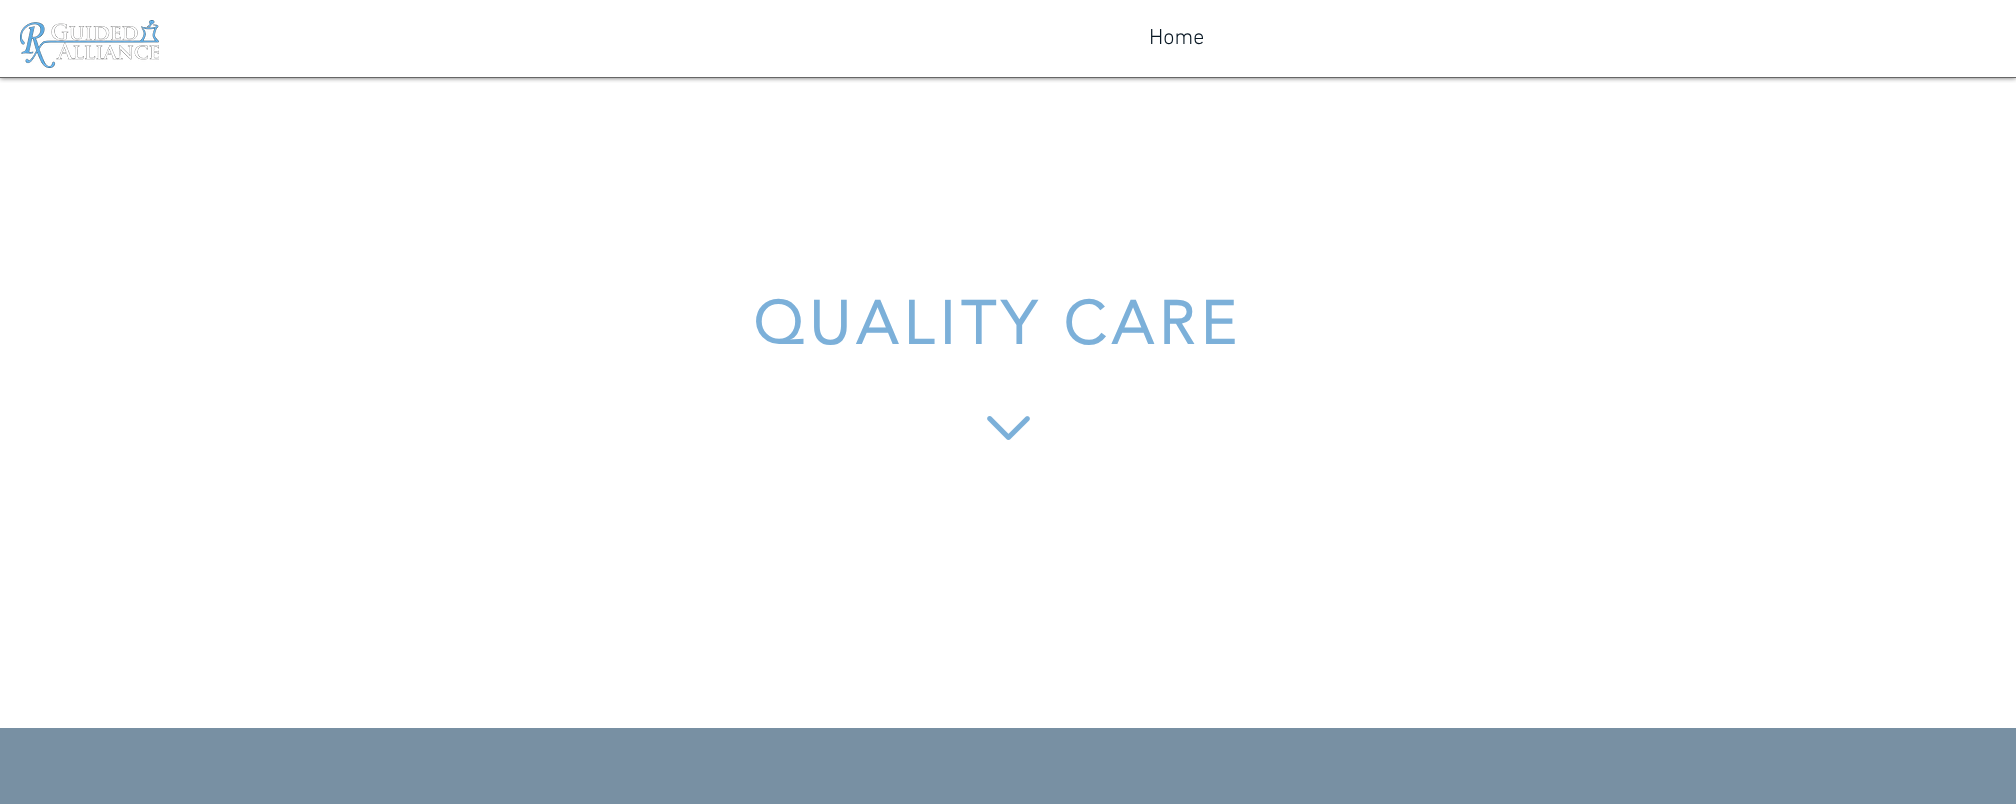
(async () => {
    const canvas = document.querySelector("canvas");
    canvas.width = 2016;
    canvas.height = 804;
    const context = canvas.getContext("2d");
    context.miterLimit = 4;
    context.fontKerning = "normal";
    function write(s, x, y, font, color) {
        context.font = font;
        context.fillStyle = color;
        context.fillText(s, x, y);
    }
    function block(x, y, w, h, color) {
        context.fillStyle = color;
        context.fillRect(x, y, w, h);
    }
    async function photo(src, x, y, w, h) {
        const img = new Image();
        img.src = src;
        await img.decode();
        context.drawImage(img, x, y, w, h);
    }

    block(0, 0, 2016, 804, "rgb(255, 255, 255)");
    context.save();
    context.beginPath();
    context.rect(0, 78, 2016, 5);
    context.clip();
    context.fillStyle = "rgba(0, 0, 0, 0.6)";
    context.filter = "blur(2.5px)";
    context.beginPath();
    context.rect(0, 0, 2016, 78);
    context.fill();
    context.filter = "none";
    context.restore();
    await photo("media/1.png", 20, 20, 139, 48);
    block(0, 77, 2016, 1, "rgb(102, 102, 102)");
    write("Home", 1149, 44, "300 22px 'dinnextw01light'", "rgb(8, 23, 35)");
    context.letterSpacing = "6px";
    write("QUALITY CARE", 753, 344, "bold 60px 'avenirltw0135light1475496'", "rgb(124, 176, 217)");
    await photo("media/2.png", 987, 416, 43, 24);
    block(0, 728, 2016, 76, "rgb(120, 144, 163)");
})();
